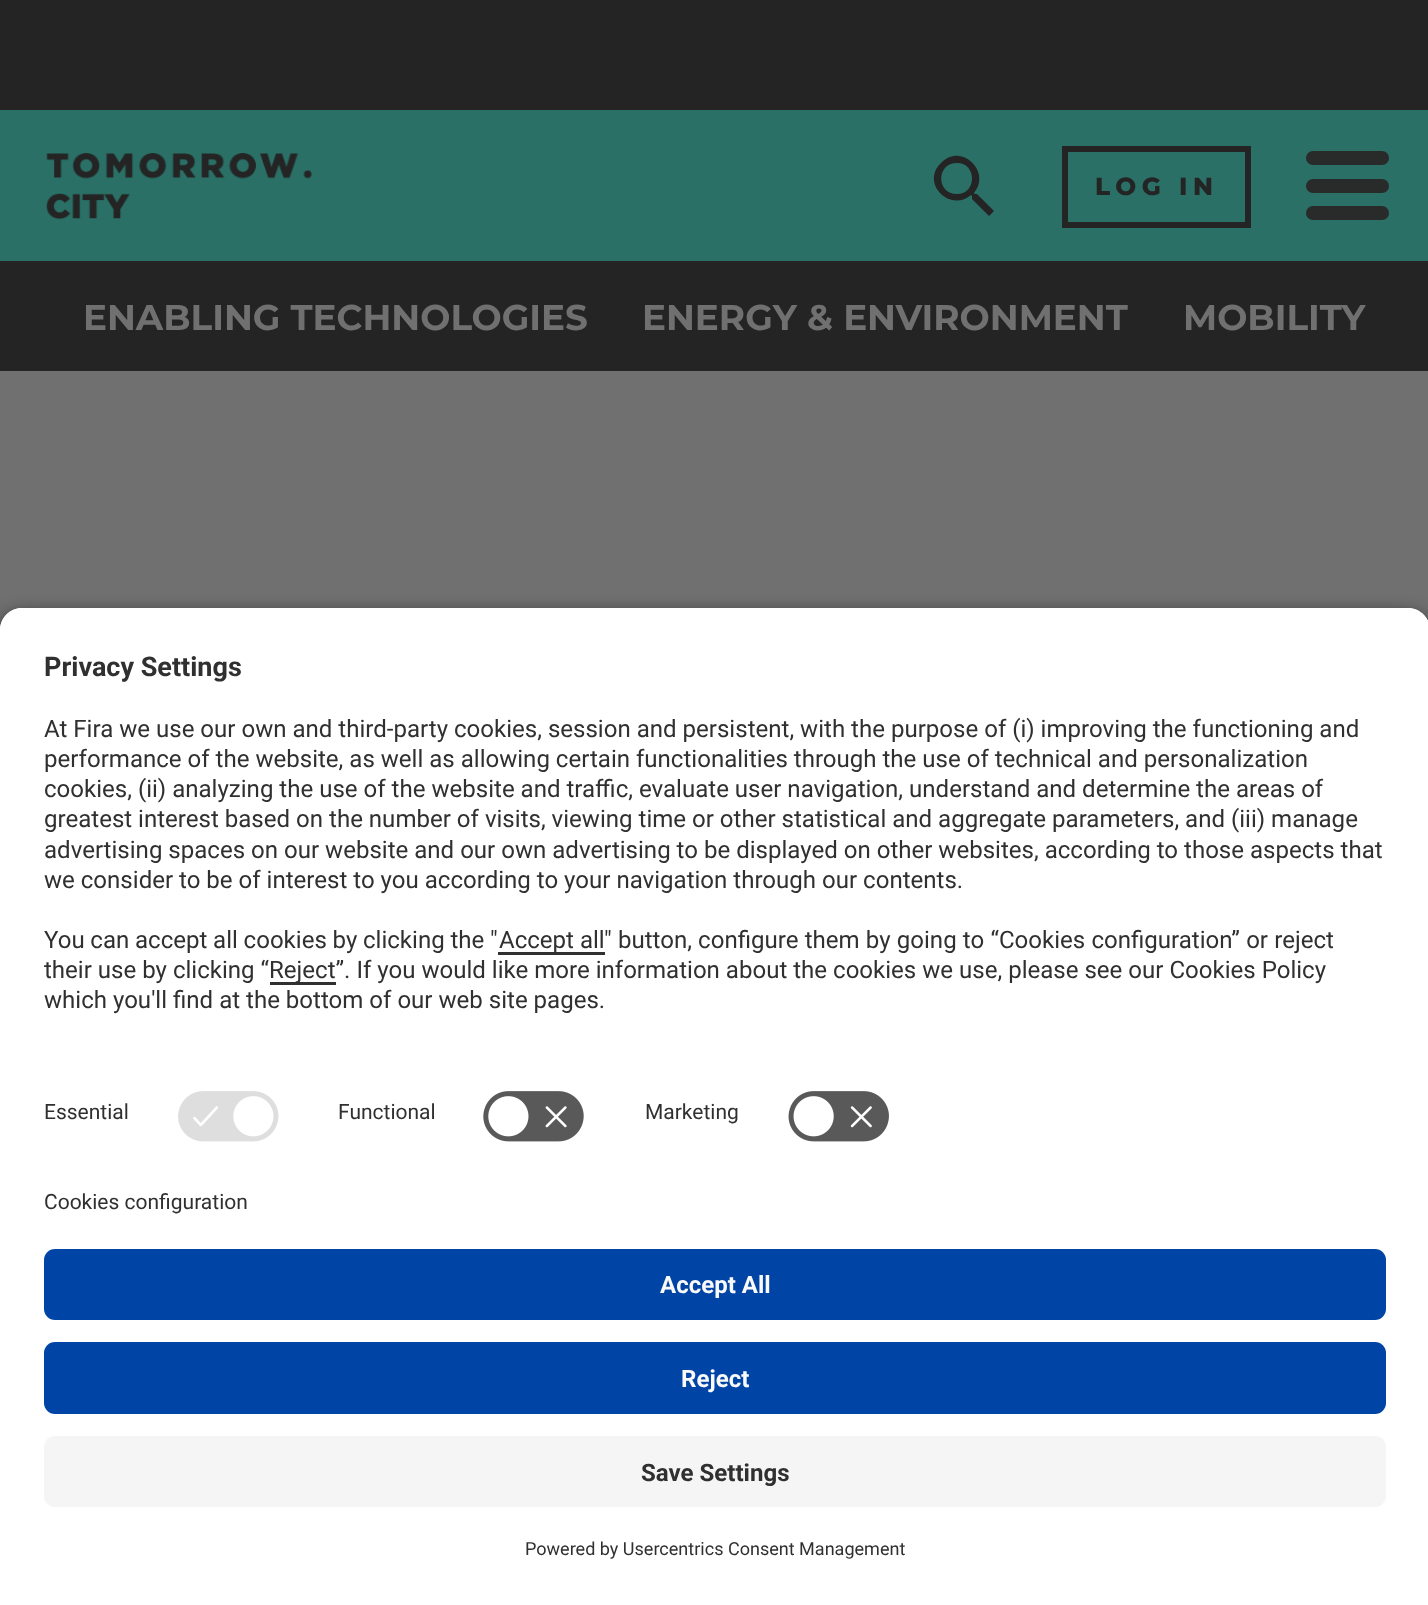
(async () => {
    const canvas = document.querySelector("canvas");
    canvas.width = 1428;
    canvas.height = 1605;
    const context = canvas.getContext("2d");
    context.miterLimit = 4;
    context.fontKerning = "normal";
    function write(s, x, y, font, color) {
        context.font = font;
        context.fillStyle = color;
        context.fillText(s, x, y);
    }
    function block(x, y, w, h, color) {
        context.fillStyle = color;
        context.fillRect(x, y, w, h);
    }
    function card(x, y, w, h, r, color) {
        context.fillStyle = color;
        context.beginPath();
        context.roundRect(x, y, w, h, r);
        context.fill();
    }
    async function photo(src, x, y, w, h) {
        const img = new Image();
        img.src = src;
        await img.decode();
        context.drawImage(img, x, y, w, h);
    }

    block(0, 0, 1428, 1605, "rgb(112, 112, 112)");
    block(0, 110, 1428, 151, "rgb(42, 112, 102)");
    block(0, 0, 1428, 110, "rgb(36, 36, 36)");
    await photo("media/1.png", 46, 153, 266, 67);
    context.beginPath();
    context.moveTo(977, 194);
    context.lineTo(975, 194);
    context.lineTo(974, 193);
    context.bezierCurveTo(992, 172, 961, 142, 941, 163);
    context.bezierCurveTo(920, 183, 950, 213, 971, 195);
    context.lineTo(972, 196);
    context.lineTo(972, 199);
    context.lineTo(989, 216);
    context.lineTo(994, 211);
    context.closePath();
    context.moveTo(957, 194);
    context.bezierCurveTo(936, 194, 936, 163, 957, 163);
    context.bezierCurveTo(977, 163, 977, 194, 957, 194);
    context.closePath();
    context.fill();
    context.strokeStyle = "rgb(36, 36, 36)";
    context.lineWidth = 6;
    context.strokeRect(1065, 149, 183, 76);
    context.letterSpacing = "5.5px";
    write("LOG IN", 1095, 195, "800 24.75px Montserrat", "rgb(36, 36, 36)");
    card(1306, 151, 83, 14, 7, "rgb(41, 42, 42)");
    card(1306, 179, 83, 14, 7, "rgb(41, 42, 42)");
    card(1306, 206, 83, 14, 7, "rgb(41, 42, 42)");
    block(0, 261, 1428, 110, "rgb(36, 36, 36)");
    context.letterSpacing = "0px";
    write("ENABLING TECHNOLOGIES", 83, 330, "bold 35.75px Montserrat", "rgb(112, 112, 112)");
    write("ENERGY & ENVIRONMENT", 642, 330, "bold 35.75px Montserrat", "rgb(112, 112, 112)");
    write("MOBILITY", 1183, 330, "bold 35.75px Montserrat", "rgb(112, 112, 112)");
    context.fillStyle = "rgba(0, 0, 0, 0.8)";
    context.filter = "blur(9.5px)";
    context.beginPath();
    context.roundRect(0, 616, 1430, 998, 22);
    context.fill();
    context.filter = "none";
    context.fillStyle = "rgb(255, 255, 255)";
    context.beginPath();
    context.moveTo(22, 608);
    context.lineTo(1408, 608);
    context.bezierCurveTo(1420, 608, 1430, 618, 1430, 630);
    context.lineTo(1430, 1191);
    context.lineTo(0, 1191);
    context.lineTo(0, 630);
    context.bezierCurveTo(0, 618, 10, 608, 22, 608);
    context.closePath();
    context.fill();
    context.beginPath();
    context.moveTo(22, 608);
    context.lineTo(1408, 608);
    context.bezierCurveTo(1420, 608, 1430, 618, 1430, 630);
    context.lineTo(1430, 1070);
    context.lineTo(0, 1070);
    context.lineTo(0, 630);
    context.bezierCurveTo(0, 618, 10, 608, 22, 608);
    context.closePath();
    context.fill();
    write("Privacy Settings", 44, 676, "bold 27px Roboto", "rgb(48, 48, 48)");
    write("At Fira we use our own and third-party cookies, session and persistent, with the purpose of (i) improving the functioning and", 44, 737, "24.05px Roboto", "rgb(48, 48, 48)");
    write("performance of the website, as well as allowing certain functionalities through the use of technical and personalization", 44, 767, "24.05px Roboto", "rgb(48, 48, 48)");
    write("cookies, (ii) analyzing the use of the website and traffic, evaluate user navigation, understand and determine the areas of", 44, 797, "24.05px Roboto", "rgb(48, 48, 48)");
    write("greatest interest based on the number of visits, viewing time or other statistical and aggregate parameters, and (iii) manage", 44, 827, "24.05px Roboto", "rgb(48, 48, 48)");
    write("advertising spaces on our website and our own advertising to be displayed on other websites, according to those aspects that", 44, 858, "24.05px Roboto", "rgb(48, 48, 48)");
    write("we consider to be of interest to you according to your navigation through our contents.", 44, 888, "24.05px Roboto", "rgb(48, 48, 48)");
    context.wordSpacing = "-0.25px";
    write("You can accept all cookies by clicking the \"", 44, 948, "24.05px Roboto", "rgb(48, 48, 48)");
    block(498, 952, 107, 3, "rgb(48, 48, 48)");
    context.wordSpacing = "0px";
    write("Accept all", 499, 948, "24.05px Roboto", "rgb(48, 48, 48)");
    context.wordSpacing = "0.25px";
    write("\" button, configure them by going to “Cookies configuration” or reject", 604, 948, "24.05px Roboto", "rgb(48, 48, 48)");
    context.wordSpacing = "0px";
    write("their use by clicking “", 44, 978, "24.05px Roboto", "rgb(48, 48, 48)");
    block(270, 982, 66, 3, "rgb(48, 48, 48)");
    write("Reject”. If you would like more information about the cookies we use, please see our Cookies Policy", 269, 978, "24.05px Roboto", "rgb(48, 48, 48)");
    write("which you'll find at the bottom of our web site pages.", 44, 1008, "24.05px Roboto", "rgb(48, 48, 48)");
    write("Essential", 44, 1119, "21px Roboto", "rgb(48, 48, 48)");
    await photo("media/2.png", 178, 1091, 101, 51);
    write("Functional", 338, 1119, "21px Roboto", "rgb(48, 48, 48)");
    await photo("media/3.png", 483, 1091, 101, 51);
    write("Marketing", 645, 1119, "21px Roboto", "rgb(48, 48, 48)");
    await photo("media/4.png", 788, 1091, 101, 51);
    block(0, 1191, 1428, 414, "rgb(255, 255, 255)");
    write("Cookies configuration", 44, 1209, "21px Roboto", "rgb(48, 48, 48)");
    card(44, 1249, 1342, 71, 11, "rgb(0, 69, 165)");
    write("Accept All", 660, 1293, "bold 24.05px Roboto", "rgb(250, 250, 250)");
    card(44, 1342, 1342, 72, 11, "rgb(0, 69, 165)");
    write("Reject", 681, 1387, "bold 24.05px Roboto", "rgb(250, 250, 250)");
    card(44, 1436, 1342, 71, 11, "rgb(245, 245, 245)");
    write("Save Settings", 641, 1481, "bold 24.05px Roboto", "rgb(48, 48, 48)");
    write("Powered by Usercentrics Consent Management", 525, 1555, "18.05px Roboto", "rgb(48, 48, 48)");
})();
